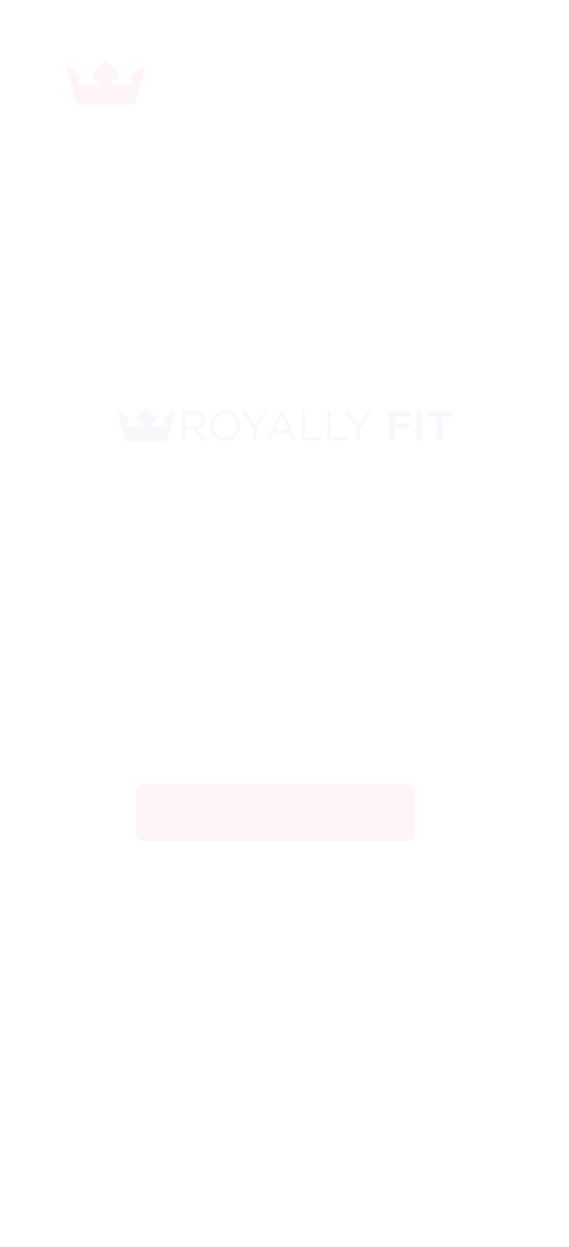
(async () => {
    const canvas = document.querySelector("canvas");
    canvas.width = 569;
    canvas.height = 1247;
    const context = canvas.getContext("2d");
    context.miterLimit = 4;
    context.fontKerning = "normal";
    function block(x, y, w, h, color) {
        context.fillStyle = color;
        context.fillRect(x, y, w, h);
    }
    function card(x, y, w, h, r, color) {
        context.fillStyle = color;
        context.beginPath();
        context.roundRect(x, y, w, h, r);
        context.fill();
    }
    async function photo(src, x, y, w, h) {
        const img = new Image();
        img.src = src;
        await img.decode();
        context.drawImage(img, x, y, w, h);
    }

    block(0, 0, 569, 1247, "rgb(255, 255, 255)");
    await photo("media/1.png", 65, 60, 82, 46);
    await photo("media/2.png", 117, 407, 335, 35);
    card(136, 784, 279, 57, 8, "rgb(254, 244, 250)");
})();
